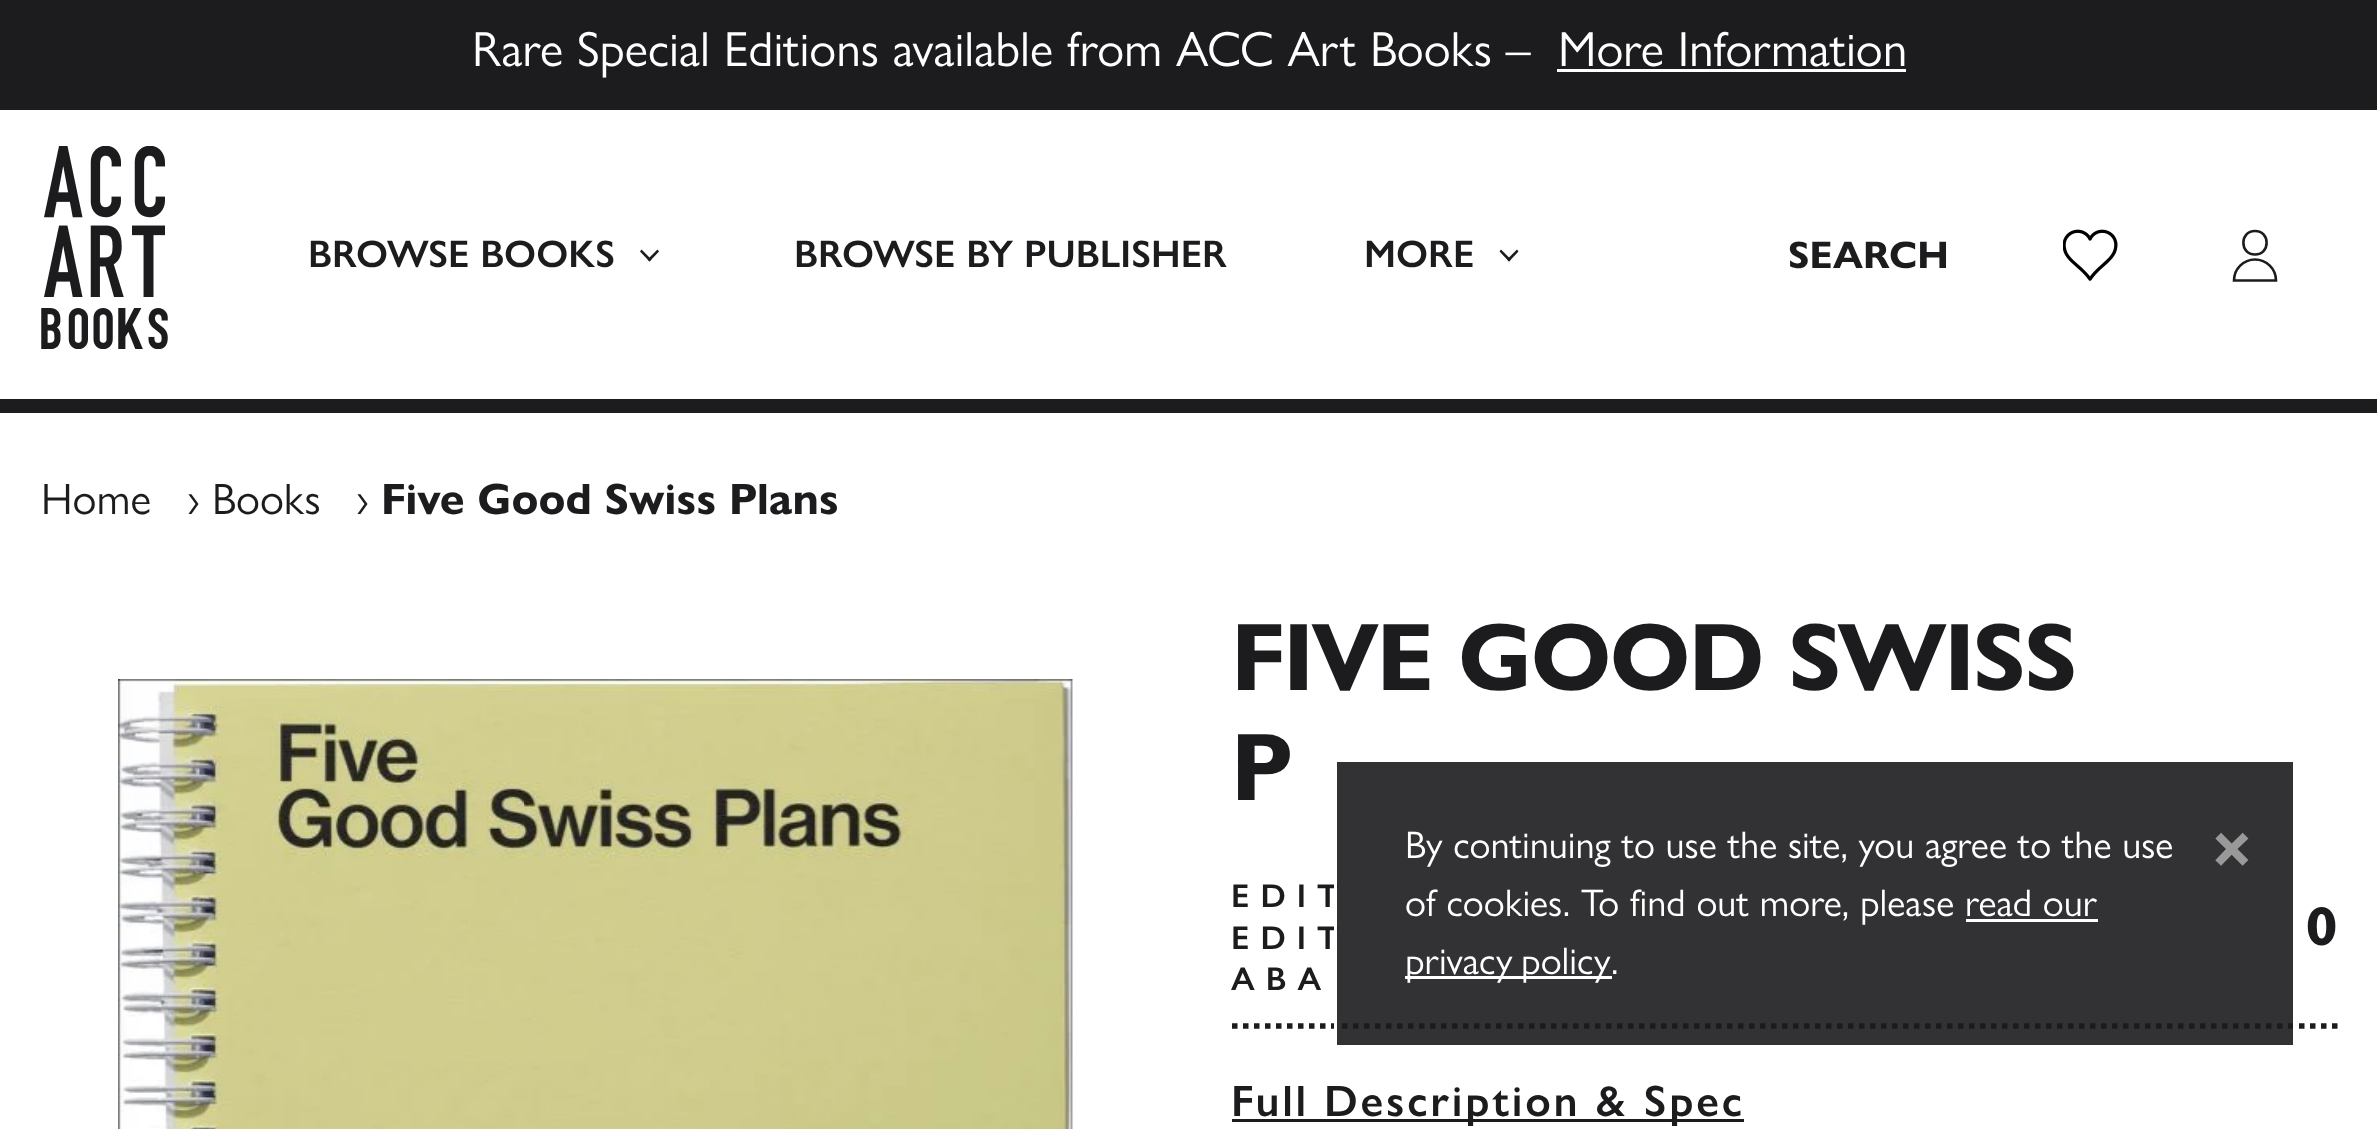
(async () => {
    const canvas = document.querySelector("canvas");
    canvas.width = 2377;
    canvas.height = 1129;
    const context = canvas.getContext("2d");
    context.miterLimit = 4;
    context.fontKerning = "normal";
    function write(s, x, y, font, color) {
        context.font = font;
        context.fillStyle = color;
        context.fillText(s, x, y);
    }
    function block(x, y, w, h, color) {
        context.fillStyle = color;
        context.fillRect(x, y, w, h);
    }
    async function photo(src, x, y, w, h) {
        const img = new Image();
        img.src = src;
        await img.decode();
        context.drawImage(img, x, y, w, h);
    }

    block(0, 0, 2377, 1129, "rgb(255, 255, 255)");
    block(0, 399, 2377, 14, "rgb(28, 28, 30)");
    block(0, 0, 2377, 110, "rgb(28, 28, 30)");
    write("Rare Special Editions available from ACC Art Books –", 472, 66, "49.5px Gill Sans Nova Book", "rgb(255, 255, 255)");
    write("More Information", 1558, 66, "49.5px Gill Sans Nova Book", "rgb(255, 255, 255)");
    block(1557, 69, 349, 3, "rgb(255, 255, 255)");
    await photo("media/1.png", 41, 146, 127, 203);
    write("BROWSE BOOKS", 308, 267, "600 38.5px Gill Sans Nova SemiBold", "rgb(28, 28, 30)");
    context.beginPath();
    context.moveTo(657.5, 249.5);
    context.lineTo(659, 251.5);
    context.lineTo(649.5, 261.5);
    context.lineTo(647.5, 259.5);
    context.closePath();
    context.fill();
    context.beginPath();
    context.moveTo(641.5, 249.5);
    context.lineTo(651.5, 259.5);
    context.lineTo(649.5, 261.5);
    context.lineTo(640, 251.5);
    context.closePath();
    context.fill();
    write("BROWSE BY PUBLISHER", 794, 267, "600 38.5px Gill Sans Nova SemiBold", "rgb(28, 28, 30)");
    write("MORE", 1364, 267, "600 38.5px Gill Sans Nova SemiBold", "rgb(28, 28, 30)");
    context.beginPath();
    context.moveTo(1517, 249.5);
    context.lineTo(1518.5, 251.5);
    context.lineTo(1509, 261.5);
    context.lineTo(1507, 259.5);
    context.closePath();
    context.fill();
    context.beginPath();
    context.moveTo(1501, 249.5);
    context.lineTo(1511, 259.5);
    context.lineTo(1509, 261.5);
    context.lineTo(1499.5, 251.5);
    context.closePath();
    context.fill();
    write("SEARCH", 1788, 268, "bold 38.5px Gill Sans Nova Book", "rgb(28, 28, 30)");
    await photo("media/2.png", 2063, 229, 55, 52);
    context.beginPath();
    context.moveTo(2255, 259.5);
    context.bezierCurveTo(2266.5, 259.5, 2276, 269, 2276, 280.5);
    context.lineTo(2234, 280.5);
    context.bezierCurveTo(2234, 269, 2243.5, 259.5, 2255, 259.5);
    context.closePath();
    context.moveTo(2255, 231);
    context.bezierCurveTo(2270.5, 231, 2270.5, 254.5, 2255, 254.5);
    context.bezierCurveTo(2239.5, 254.5, 2239.5, 231, 2255, 231);
    context.closePath();
    context.strokeStyle = "rgb(28, 28, 30)";
    context.lineWidth = 2.6;
    context.stroke();
    write("Home", 41, 514, "44px Gill Sans Nova Book", "rgb(28, 28, 30)");
    write("› Books", 187, 514, "44px Gill Sans Nova Book", "rgb(28, 28, 30)");
    write("›", 356, 514, "44px Gill Sans Nova Book", "rgb(28, 28, 30)");
    write("Five Good Swiss Plans", 381, 514, "bold 44px Gill Sans Nova Book", "rgb(28, 28, 30)");
    await photo("media/3.png", 118, 679, 955, 450);
    context.letterSpacing = "-2.25px";
    write("FIVE GOOD SWISS", 1231, 690, "bold 96.25px Gill Sans Nova Book", "rgb(28, 28, 30)");
    write("P", 1231, 800, "bold 96.25px Gill Sans Nova Book", "rgb(28, 28, 30)");
    context.beginPath();
    context.moveTo(1232, 1026);
    context.lineTo(2337.5, 1026);
    context.lineWidth = 5.5;
    context.setLineDash([5.5, 5.5]);
    context.stroke();
    context.letterSpacing = "11px";
    write("EDIT", 1231, 907, "600 33px Gill Sans Nova SemiBold", "rgb(28, 28, 30)");
    write("EDIT", 1231, 949, "600 33px Gill Sans Nova SemiBold", "rgb(28, 28, 30)");
    write("ABA", 1231, 990, "600 33px Gill Sans Nova SemiBold", "rgb(28, 28, 30)");
    context.letterSpacing = "0px";
    write("0", 2306, 945, "bold 55px Gill Sans Nova Book", "rgb(28, 28, 30)");
    block(1232, 1119, 512, 3, "rgb(28, 28, 30)");
    context.letterSpacing = "2.75px";
    write("Full Description & Spec", 1231, 1116, "600 44px Gill Sans Nova SemiBold", "rgb(28, 28, 30)");
    context.fillStyle = "rgba(28, 28, 30, 0.9)";
    context.beginPath();
    context.rect(1335.5, 760.5, 959, 286);
    context.fill();
    context.strokeStyle = "rgb(255, 255, 255)";
    context.lineWidth = 3;
    context.setLineDash([]);
    context.stroke();
    context.letterSpacing = "0px";
    write("By continuing to use the site, you agree to the use", 1405, 858, "38.5px Gill Sans Nova Book", "rgb(255, 255, 255)");
    write("of cookies. To find out more, please read our", 1405, 916, "38.5px Gill Sans Nova Book", "rgb(255, 255, 255)");
    block(1405, 976, 207, 3, "rgb(255, 255, 255)");
    context.wordSpacing = "-2px";
    write("privacy policy", 1405, 974, "38.5px Gill Sans Nova Book", "rgb(255, 255, 255)");
    block(1966, 919, 132, 3, "rgb(255, 255, 255)");
    context.wordSpacing = "0px";
    write(".", 1611, 974, "38.5px Gill Sans Nova Book", "rgb(255, 255, 255)");
    write("×", 2211, 872, "bold 66px Gill Sans Nova Book", "rgb(153, 153, 154)");
})();
